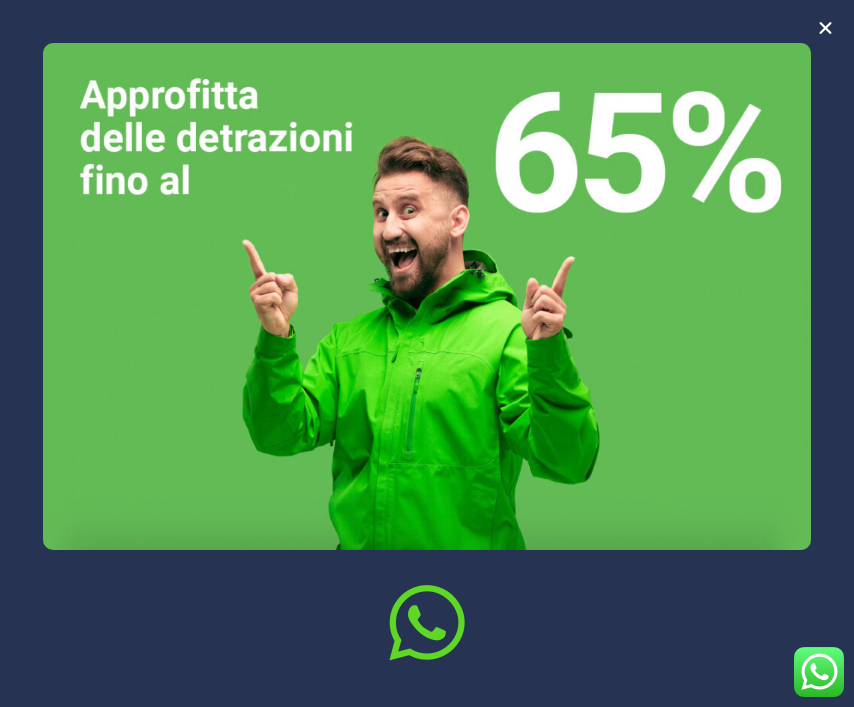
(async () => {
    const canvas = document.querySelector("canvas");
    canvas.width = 854;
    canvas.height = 707;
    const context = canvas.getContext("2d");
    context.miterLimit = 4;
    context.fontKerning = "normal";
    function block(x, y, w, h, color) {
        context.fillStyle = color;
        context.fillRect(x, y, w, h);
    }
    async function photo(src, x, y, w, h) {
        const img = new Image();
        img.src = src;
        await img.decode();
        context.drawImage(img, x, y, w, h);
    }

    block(0, 0, 854, 707, "rgb(38, 51, 82)");
    await photo("media/1.png", 819, 22, 13, 12);
    await photo("media/2.png", 43, 43, 768, 507);
    await photo("media/3.png", 389, 585, 76, 76);
    await photo("media/4.png", 794, 647, 50, 50);
})();
